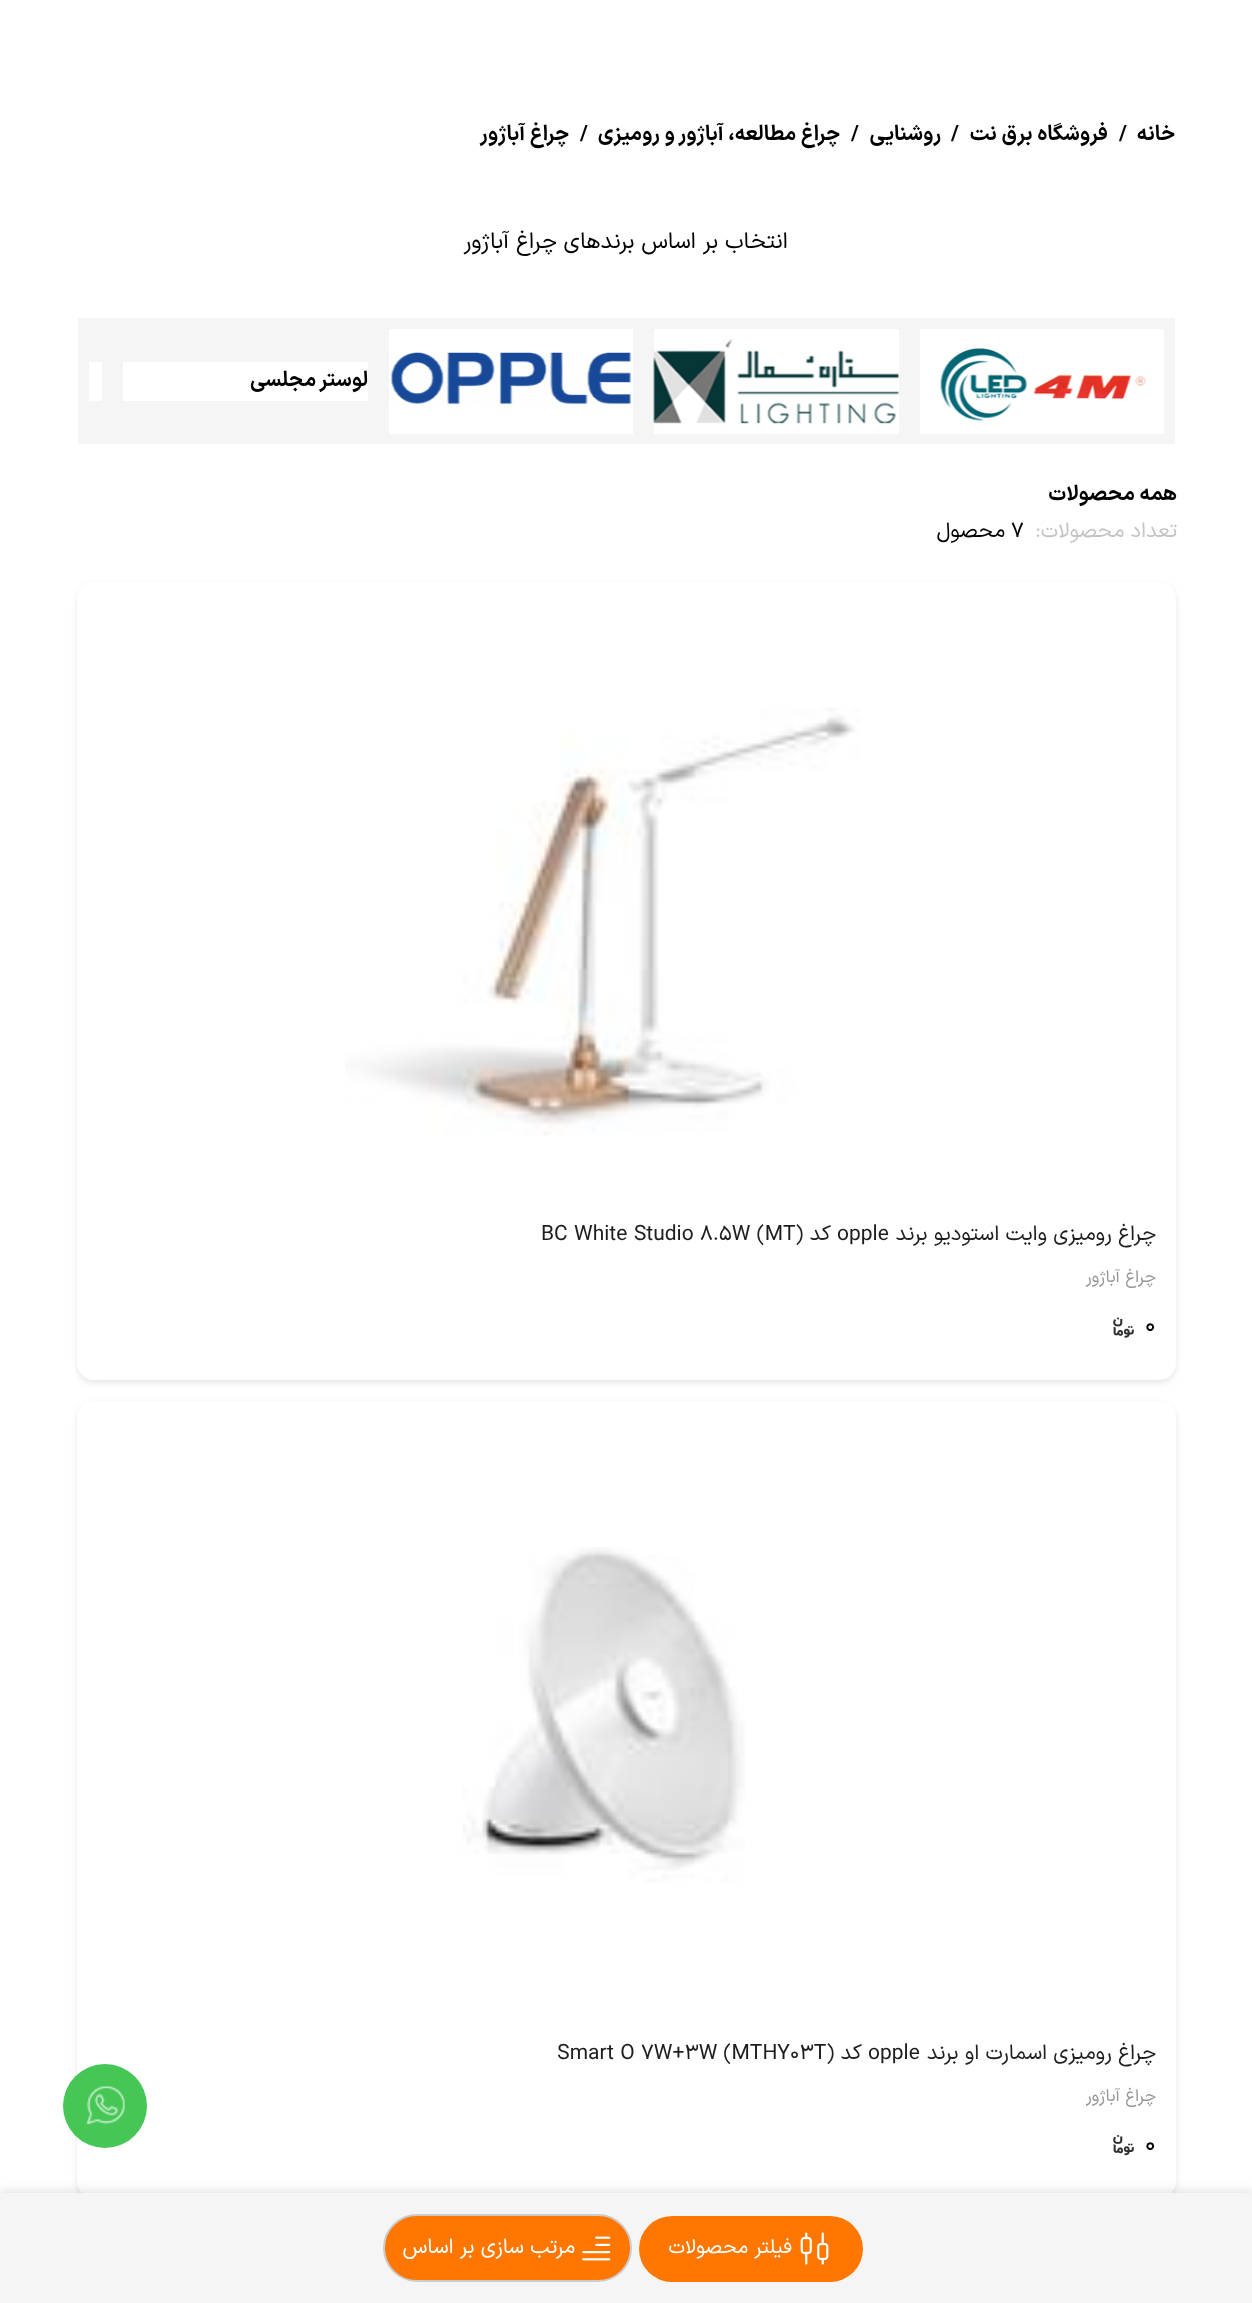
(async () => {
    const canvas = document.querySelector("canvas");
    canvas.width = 1252;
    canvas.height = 2303;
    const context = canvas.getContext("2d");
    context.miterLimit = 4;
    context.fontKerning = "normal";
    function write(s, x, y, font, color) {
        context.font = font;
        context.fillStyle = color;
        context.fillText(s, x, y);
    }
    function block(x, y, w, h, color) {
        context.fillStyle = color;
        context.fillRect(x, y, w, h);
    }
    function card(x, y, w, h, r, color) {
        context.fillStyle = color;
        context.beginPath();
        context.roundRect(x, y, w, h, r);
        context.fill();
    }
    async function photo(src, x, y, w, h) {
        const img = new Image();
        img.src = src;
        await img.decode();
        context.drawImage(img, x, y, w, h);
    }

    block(0, 0, 1252, 2303, "rgb(255, 255, 255)");
    context.direction = "rtl";
    write("خانه", 1175, 140, "bold 21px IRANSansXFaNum", "rgb(0, 0, 0)");
    context.direction = "ltr";
    write("/", 1119, 140, "bold 21px IRANSansXFaNum", "rgb(0, 0, 0)");
    context.direction = "rtl";
    write("فروشگاه برق نت", 1108, 140, "bold 21px IRANSansXFaNum", "rgb(0, 0, 0)");
    context.direction = "ltr";
    write("/", 951, 140, "bold 21px IRANSansXFaNum", "rgb(0, 0, 0)");
    context.direction = "rtl";
    write("روشنایی", 941, 140, "bold 21px IRANSansXFaNum", "rgb(0, 0, 0)");
    context.direction = "ltr";
    write("/", 851, 140, "bold 21px IRANSansXFaNum", "rgb(0, 0, 0)");
    context.direction = "rtl";
    write("چراغ مطالعه، آباژور و رومیزی", 840, 140, "bold 21px IRANSansXFaNum", "rgb(0, 0, 0)");
    context.direction = "ltr";
    write("/", 580, 140, "bold 21px IRANSansXFaNum", "rgb(0, 0, 0)");
    context.direction = "rtl";
    write("چراغ آباژور", 569, 140, "bold 21px IRANSansXFaNum", "rgb(0, 0, 0)");
    write("انتخاب بر اساس برندهای چراغ آباژور", 788, 248, "22.5px IRANSansXFaNum", "rgb(0, 0, 0)");
    block(78, 318, 1097, 126, "rgb(245, 245, 245)");
    block(920, 329, 244, 105, "rgb(255, 255, 255)");
    await photo("media/1.png", 940, 348, 206, 73);
    block(654, 329, 245, 105, "rgb(255, 255, 255)");
    await photo("media/2.png", 653, 339, 246, 85);
    block(389, 329, 244, 105, "rgb(255, 255, 255)");
    await photo("media/3.png", 390, 352, 242, 53);
    block(123, 362, 245, 39, "rgb(255, 255, 255)");
    write("لوستر مجلسی", 368, 386, "bold 21px IRANSansXFaNum", "rgb(0, 0, 0)");
    block(89, 362, 13, 39, "rgb(255, 255, 255)");
    write("همه محصولات", 1177, 500, "bold 21px IRANSansXFaNum", "rgb(0, 0, 0)");
    write("تعداد محصولات:", 1177, 537, "21px IRANSansXFaNum", "rgb(196, 196, 196)");
    context.direction = "ltr";
    write("7", 1011, 537, "21px IRANSansXFaNum", "rgb(0, 0, 0)");
    context.direction = "rtl";
    write("محصول", 1005, 537, "21px IRANSansXFaNum", "rgb(0, 0, 0)");
    context.save();
    context.beginPath();
    context.moveTo(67, 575);
    context.lineTo(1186, 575);
    context.lineTo(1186, 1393);
    context.lineTo(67, 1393);
    context.closePath();
    context.moveTo(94, 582);
    context.lineTo(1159, 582);
    context.bezierCurveTo(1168.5, 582, 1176, 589.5, 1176, 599);
    context.lineTo(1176, 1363);
    context.bezierCurveTo(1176, 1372.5, 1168.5, 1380, 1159, 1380);
    context.lineTo(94, 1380);
    context.bezierCurveTo(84.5, 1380, 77, 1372.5, 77, 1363);
    context.lineTo(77, 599);
    context.bezierCurveTo(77, 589.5, 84.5, 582, 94, 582);
    context.closePath();
    context.clip("evenodd");
    context.fillStyle = "rgba(96, 97, 112, 0.16)";
    context.filter = "blur(3px)";
    context.beginPath();
    context.roundRect(77, 585, 1099, 798, 17);
    context.fill();
    context.filter = "none";
    context.restore();
    await photo("media/4.png", 345, 707, 515, 429);
    write("چراغ رومیزی وایت استودیو برند", 1156, 1240, "21px IRANSansXFaNum", "rgb(30, 30, 30)");
    context.direction = "ltr";
    write("opple", 837, 1240, "21px IRANSansXFaNum", "rgb(30, 30, 30)");
    context.direction = "rtl";
    write("کد (", 831, 1240, "21px IRANSansXFaNum", "rgb(30, 30, 30)");
    context.direction = "ltr";
    write("BC White Studio 8.5W (MT", 541, 1240, "21px IRANSansXFaNum", "rgb(30, 30, 30)");
    context.direction = "rtl";
    write("چراغ آباژور", 1156, 1282, "17px IRANSansXFaNum", "rgb(151, 151, 151)");
    context.direction = "ltr";
    write("0", 1145, 1332, "24px IRANSansXFaNum", "rgb(0, 0, 0)");
    await photo("media/5.png", 1113, 1317, 21, 21);
    context.save();
    context.beginPath();
    context.moveTo(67, 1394);
    context.lineTo(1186, 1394);
    context.lineTo(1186, 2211);
    context.lineTo(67, 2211);
    context.closePath();
    context.moveTo(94, 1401);
    context.lineTo(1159, 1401);
    context.bezierCurveTo(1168.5, 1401, 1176, 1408.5, 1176, 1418);
    context.lineTo(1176, 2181);
    context.bezierCurveTo(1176, 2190.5, 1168.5, 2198, 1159, 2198);
    context.lineTo(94, 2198);
    context.bezierCurveTo(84.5, 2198, 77, 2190.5, 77, 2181);
    context.lineTo(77, 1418);
    context.bezierCurveTo(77, 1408.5, 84.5, 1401, 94, 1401);
    context.closePath();
    context.clip("evenodd");
    context.fillStyle = "rgba(96, 97, 112, 0.16)";
    context.filter = "blur(3px)";
    context.beginPath();
    context.roundRect(77, 1404, 1099, 797, 17);
    context.fill();
    context.filter = "none";
    context.restore();
    await photo("media/6.png", 462, 1547, 283, 336);
    context.direction = "rtl";
    write("چراغ رومیزی اسمارت او برند", 1156, 2059, "21px IRANSansXFaNum", "rgb(30, 30, 30)");
    context.direction = "ltr";
    write("opple", 868, 2059, "21px IRANSansXFaNum", "rgb(30, 30, 30)");
    context.direction = "rtl";
    write("کد (", 862, 2059, "21px IRANSansXFaNum", "rgb(30, 30, 30)");
    context.direction = "ltr";
    write("Smart O 7W+3W (MTHY03T", 557, 2059, "21px IRANSansXFaNum", "rgb(30, 30, 30)");
    context.direction = "rtl";
    write("چراغ آباژور", 1156, 2101, "17px IRANSansXFaNum", "rgb(151, 151, 151)");
    context.direction = "ltr";
    write("0", 1145, 2151, "24px IRANSansXFaNum", "rgb(0, 0, 0)");
    await photo("media/7.png", 1113, 2134, 21, 22);
    context.fillStyle = "rgba(0, 0, 0, 0.1)";
    context.filter = "blur(4px)";
    context.beginPath();
    context.rect(0, 2190, 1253, 111);
    context.fill();
    context.filter = "none";
    block(0, 2193, 1252, 110, "rgb(245, 245, 245)");
    card(639, 2216, 224, 66, 33, "rgb(255, 119, 0)");
    await photo("media/8.png", 800, 2232, 29, 33);
    context.direction = "rtl";
    write("فیلتر محصولات", 792, 2253, "20px IRANSansXFaNum", "rgb(255, 255, 255)");
    context.fillStyle = "rgb(255, 119, 0)";
    context.beginPath();
    context.roundRect(384, 2215, 247, 66, 33);
    context.fill();
    context.strokeStyle = "rgb(204, 204, 204)";
    context.lineWidth = 2;
    context.stroke();
    await photo("media/9.png", 582, 2236, 29, 25);
    write("مرتب سازی بر اساس", 575, 2253, "21px IRANSansXFaNum", "rgb(255, 255, 255)");
    context.fillStyle = "rgb(69, 198, 85)";
    context.beginPath();
    context.arc(105, 2106, 42, 0, Math.PI * 2);
    context.fill();
    await photo("media/10.png", 86, 2086, 39, 39);
})();
